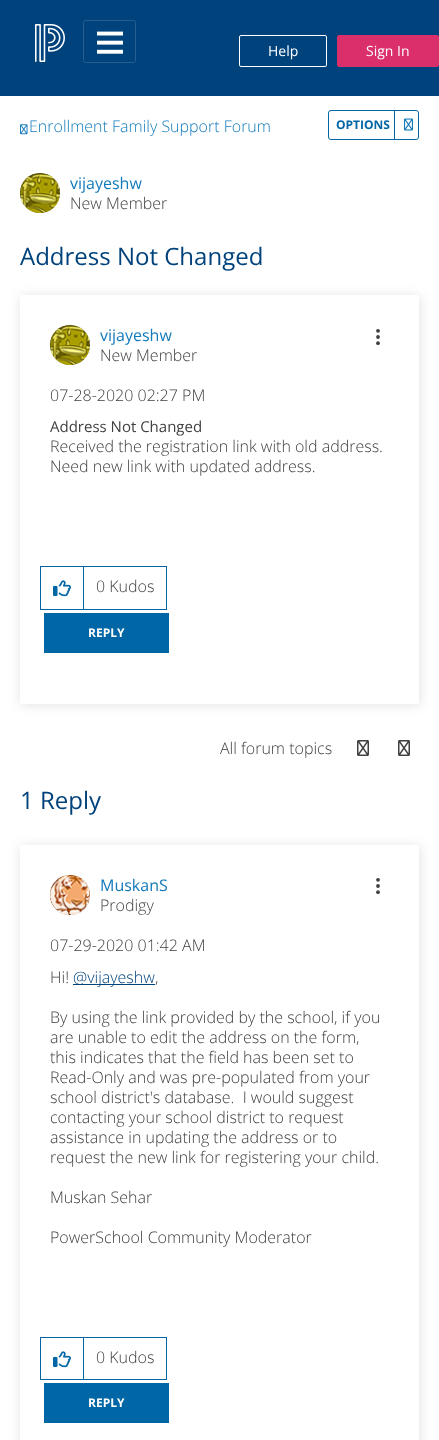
(async () => {
    const canvas = document.querySelector("canvas");
    canvas.width = 439;
    canvas.height = 1440;
    const context = canvas.getContext("2d");
    context.miterLimit = 4;
    context.fontKerning = "normal";
    function write(s, x, y, font, color) {
        context.font = font;
        context.fillStyle = color;
        context.fillText(s, x, y);
    }
    function block(x, y, w, h, color) {
        context.fillStyle = color;
        context.fillRect(x, y, w, h);
    }
    async function photo(src, x, y, w, h) {
        const img = new Image();
        img.src = src;
        await img.decode();
        context.drawImage(img, x, y, w, h);
    }

    block(0, 0, 439, 1440, "rgb(255, 255, 255)");
    block(0, 0, 439, 96, "rgb(0, 66, 124)");
    await photo("media/1.png", 35, 24, 30, 38);
    context.beginPath();
    context.roundRect(83.5, 20.5, 52, 42, 2);
    context.strokeStyle = "rgb(38, 94, 144)";
    context.stroke();
    await photo("media/2.png", 97, 31, 26, 23);
    context.beginPath();
    context.roundRect(239.5, 35.5, 87, 31, 1.5);
    context.strokeStyle = "rgb(255, 255, 255)";
    context.stroke();
    write("Help", 268, 56, "14px Open Sans", "rgb(255, 255, 255)");
    context.fillStyle = "rgb(218, 47, 107)";
    context.beginPath();
    context.roundRect(337.5, 35.5, 101, 31, 1.5);
    context.fill();
    context.strokeStyle = "rgb(218, 47, 107)";
    context.stroke();
    write("Sign In", 366, 56, "14px Open Sans", "rgb(255, 255, 255)");
    await photo("media/3.png", 20, 124, 8, 11);
    write("Enrollment Family Support Forum", 29, 132, "300 16px Open Sans", "rgb(19, 122, 187)");
    context.beginPath();
    context.roundRect(328.5, 110.5, 90, 29, 2.5);
    context.strokeStyle = "rgb(0, 102, 165)";
    context.stroke();
    write("OPTIONS", 336, 129, "bold 12px Open Sans", "rgb(0, 102, 165)");
    block(394, 111, 1, 28, "rgb(0, 102, 165)");
    await photo("media/4.png", 404, 118, 9, 13);
    context.fillStyle = "rgb(153, 153, 153)";
    context.filter = "blur(0.5px)";
    context.beginPath();
    context.roundRect(20, 173, 40, 40, 20);
    context.fill();
    context.filter = "none";
    await photo("media/5.png", 20, 173, 40, 40);
    write("vijayeshw", 70, 189, "16px Open Sans", "rgb(19, 122, 187)");
    write("New Member", 70, 209, "300 16px Open Sans", "rgb(64, 64, 64)");
    write("Address Not Changed", 20, 265, "24px Open Sans", "rgb(0, 66, 124)");
    context.save();
    context.beginPath();
    context.moveTo(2, 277);
    context.lineTo(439, 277);
    context.lineTo(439, 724);
    context.lineTo(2, 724);
    context.closePath();
    context.moveTo(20, 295);
    context.lineTo(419, 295);
    context.lineTo(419, 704);
    context.lineTo(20, 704);
    context.closePath();
    context.clip("evenodd");
    context.fillStyle = "rgba(198, 198, 198, 0.5)";
    context.filter = "blur(6px)";
    context.beginPath();
    context.rect(21, 296, 399, 409);
    context.fill();
    context.filter = "none";
    context.restore();
    context.fillStyle = "rgb(153, 153, 153)";
    context.filter = "blur(0.5px)";
    context.beginPath();
    context.roundRect(50, 325, 40, 40, 20);
    context.fill();
    context.filter = "none";
    await photo("media/6.png", 50, 325, 40, 40);
    write("vijayeshw", 100, 341, "16px Open Sans", "rgb(19, 122, 187)");
    write("New Member", 100, 361, "300 16px Open Sans", "rgb(64, 64, 64)");
    context.beginPath();
    context.arc(378, 330.8, 1.9, 0, Math.PI * 2);
    context.fill();
    context.beginPath();
    context.arc(378, 337, 1.9, 0, Math.PI * 2);
    context.fill();
    context.beginPath();
    context.arc(378, 343.2, 1.9, 0, Math.PI * 2);
    context.fill();
    write("07-28-2020 02:27 PM", 50, 401, "300 16px Open Sans", "rgb(64, 64, 64)");
    write("Address Not Changed", 50, 432, "15px Open Sans", "rgb(64, 64, 64)");
    write("Received the registration link with old address.", 50, 452, "300 16px Open Sans", "rgb(64, 64, 64)");
    write("Need new link with updated address.", 50, 472, "300 16px Open Sans", "rgb(64, 64, 64)");
    context.strokeRect(40.5, 566.5, 126, 43);
    block(83, 567, 1, 42, "rgb(0, 102, 165)");
    await photo("media/7.png", 53, 580, 18, 17);
    write("0 Kudos", 96, 592, "300 16px Open Sans", "rgb(64, 64, 64)");
    block(44, 613, 125, 40, "rgb(0, 102, 165)");
    write("REPLY", 88, 637, "bold 12px Open Sans", "rgb(255, 255, 255)");
    write("All forum topics", 220, 754, "300 16px Open Sans", "rgb(64, 64, 64)");
    await photo("media/8.png", 357, 740, 12, 16);
    await photo("media/8.png", 398, 740, 12, 16);
    write("1 Reply", 20, 809, "24px Open Sans", "rgb(0, 66, 124)");
    context.save();
    context.beginPath();
    context.moveTo(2, 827);
    context.lineTo(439, 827);
    context.lineTo(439, 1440);
    context.lineTo(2, 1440);
    context.closePath();
    context.moveTo(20, 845);
    context.lineTo(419, 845);
    context.lineTo(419, 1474);
    context.lineTo(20, 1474);
    context.closePath();
    context.clip("evenodd");
    context.fillStyle = "rgba(198, 198, 198, 0.5)";
    context.filter = "blur(6px)";
    context.beginPath();
    context.rect(21, 846, 399, 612);
    context.fill();
    context.filter = "none";
    context.restore();
    context.fillStyle = "rgb(153, 153, 153)";
    context.filter = "blur(0.5px)";
    context.beginPath();
    context.roundRect(50, 875, 40, 40, 20);
    context.fill();
    context.filter = "none";
    await photo("media/9.png", 50, 875, 40, 40);
    write("MuskanS", 100, 891, "16px Open Sans", "rgb(19, 122, 187)");
    write("Prodigy", 100, 911, "300 16px Open Sans", "rgb(64, 64, 64)");
    context.beginPath();
    context.arc(378, 879.8, 1.9, 0, Math.PI * 2);
    context.fill();
    context.beginPath();
    context.arc(378, 886, 1.9, 0, Math.PI * 2);
    context.fill();
    context.beginPath();
    context.arc(378, 892.2, 1.9, 0, Math.PI * 2);
    context.fill();
    write("07-29-2020 01:42 AM", 50, 951, "300 16px Open Sans", "rgb(64, 64, 64)");
    write("Hi!", 50, 983, "300 16px Open Sans", "rgb(64, 64, 64)");
    block(73, 984, 82, 1, "rgb(0, 66, 124)");
    write("@vijayeshw", 73, 983, "300 16px Open Sans", "rgb(0, 66, 124)");
    write(",", 155, 983, "300 16px Open Sans", "rgb(64, 64, 64)");
    write("By using the link provided by the school, if you", 50, 1023, "300 16px Open Sans", "rgb(64, 64, 64)");
    write("are unable to edit the address on the form,", 50, 1043, "300 16px Open Sans", "rgb(64, 64, 64)");
    write("this indicates that the field has been set to", 50, 1063, "300 16px Open Sans", "rgb(64, 64, 64)");
    write("Read-Only and was pre-populated from your", 50, 1083, "300 16px Open Sans", "rgb(64, 64, 64)");
    write("school district's database.  I would suggest", 50, 1103, "300 16px Open Sans", "rgb(64, 64, 64)");
    write("contacting your school district to request", 50, 1123, "300 16px Open Sans", "rgb(64, 64, 64)");
    write("assistance in updating the address or to", 50, 1143, "300 16px Open Sans", "rgb(64, 64, 64)");
    write("request the new link for registering your child.", 50, 1163, "300 16px Open Sans", "rgb(64, 64, 64)");
    write("Muskan Sehar", 50, 1203, "300 16px Open Sans", "rgb(64, 64, 64)");
    write("PowerSchool Community Moderator", 50, 1243, "300 16px Open Sans", "rgb(64, 64, 64)");
    context.strokeRect(40.5, 1337.5, 126, 42);
    block(83, 1338, 1, 41, "rgb(0, 102, 165)");
    await photo("media/7.png", 53, 1351, 18, 17);
    write("0 Kudos", 96, 1363, "300 16px Open Sans", "rgb(64, 64, 64)");
    block(44, 1383, 125, 40, "rgb(0, 102, 165)");
    write("REPLY", 88, 1407, "bold 12px Open Sans", "rgb(255, 255, 255)");
})();
